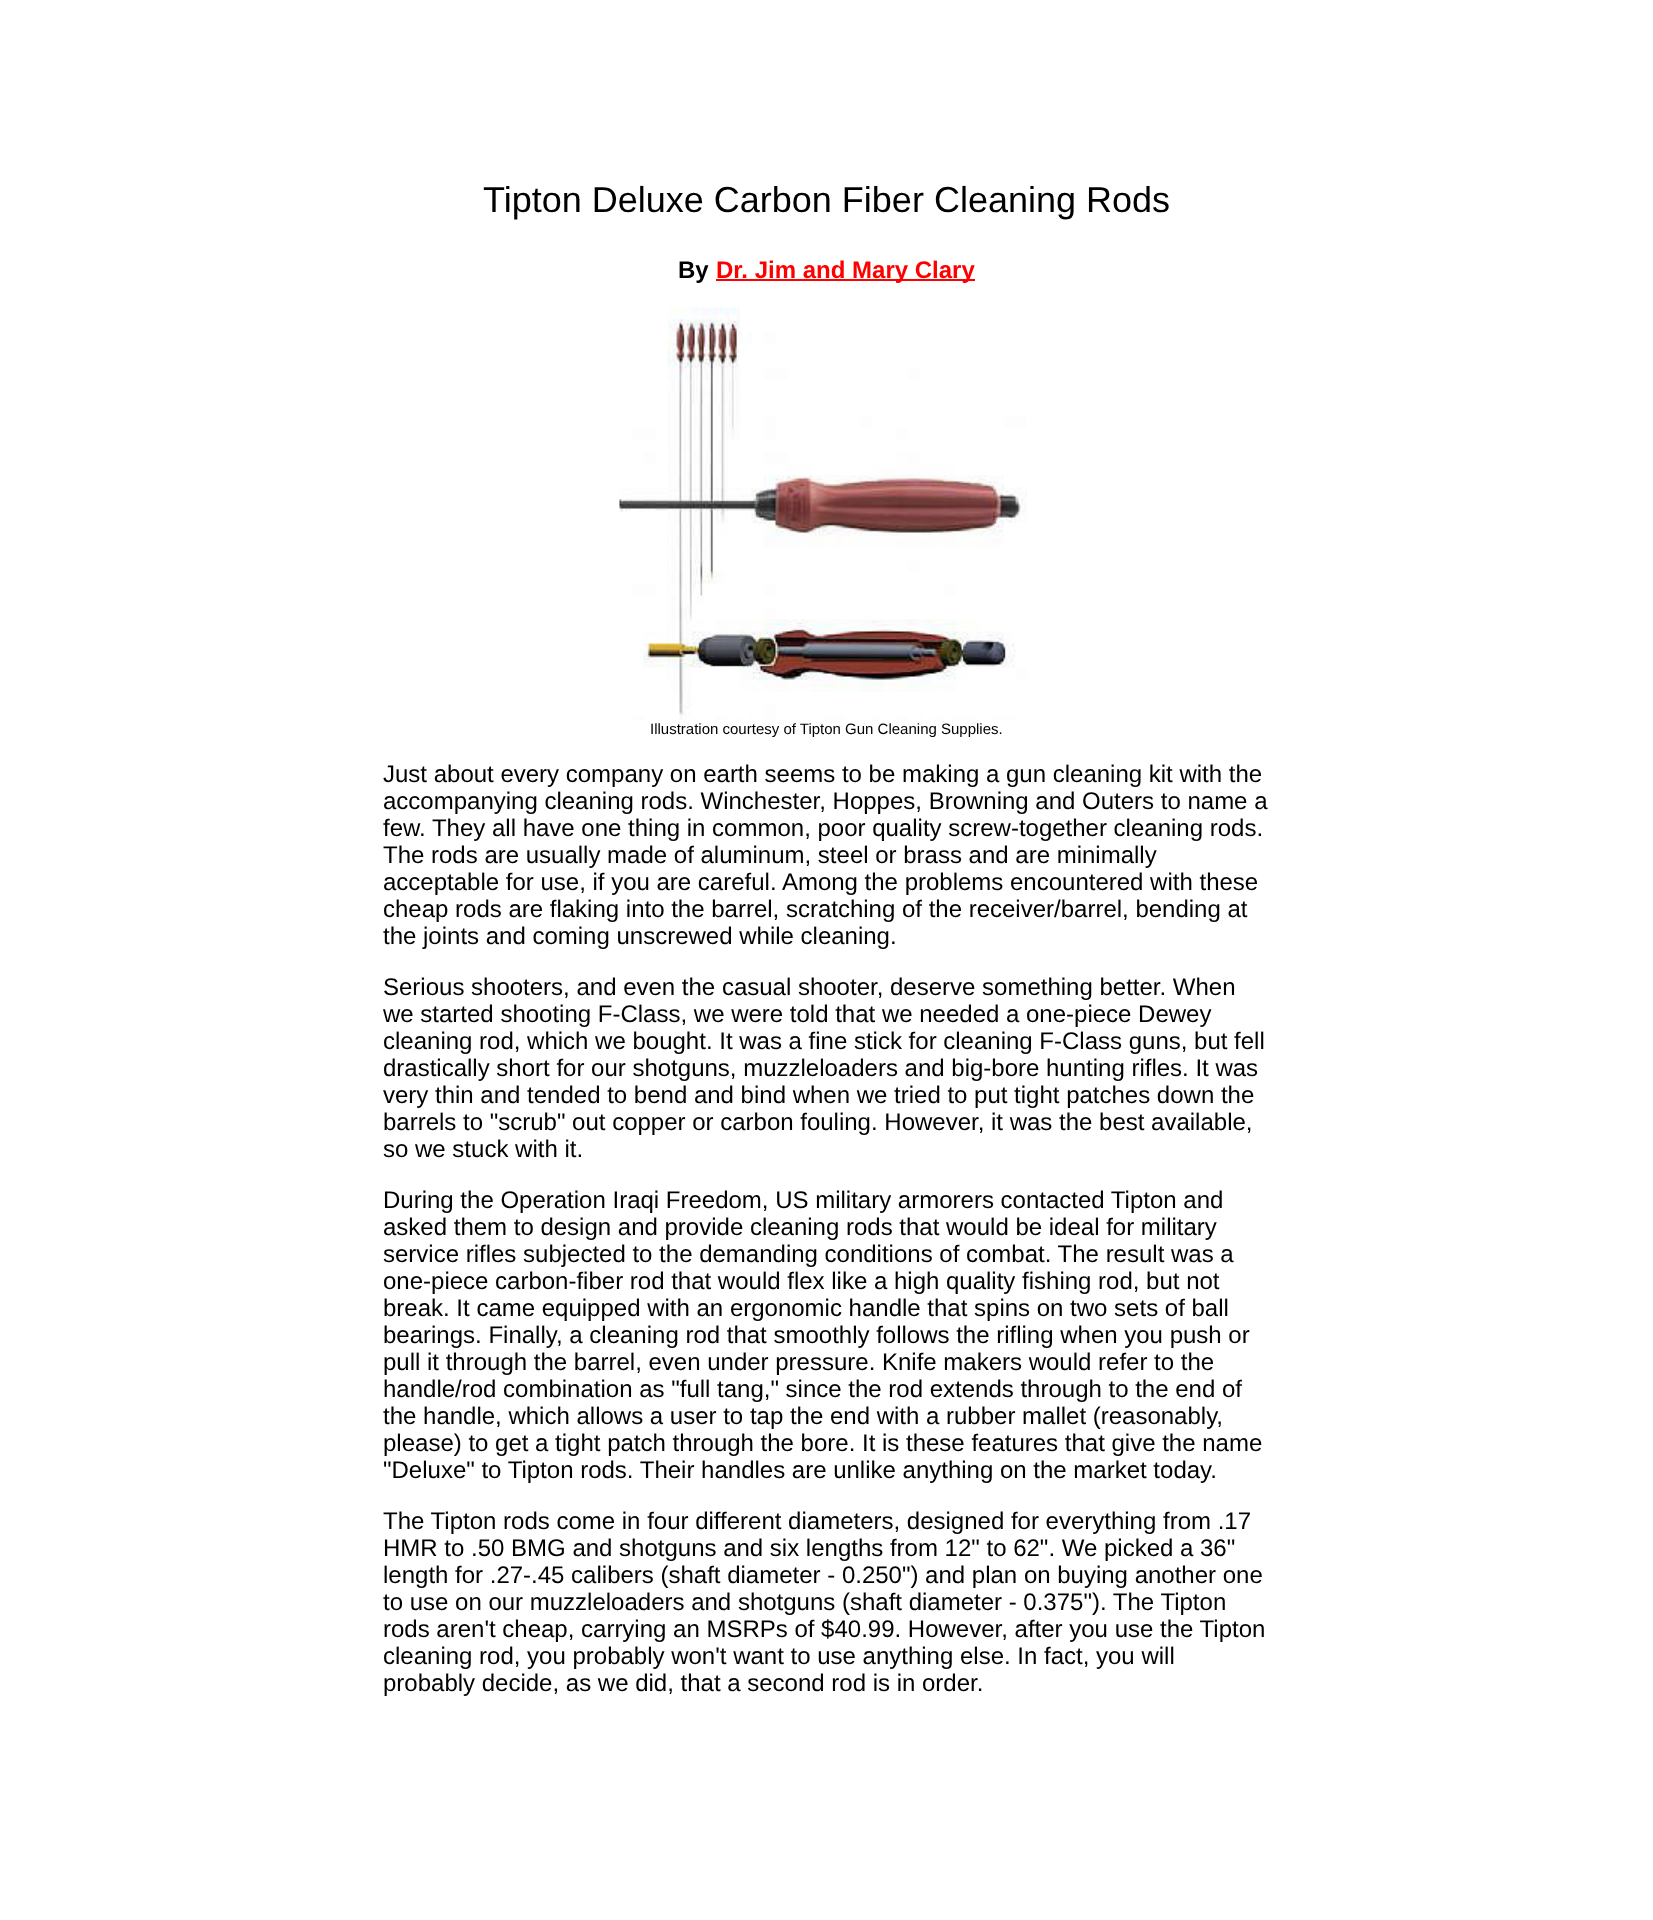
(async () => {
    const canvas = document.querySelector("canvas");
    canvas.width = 1653;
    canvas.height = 1920;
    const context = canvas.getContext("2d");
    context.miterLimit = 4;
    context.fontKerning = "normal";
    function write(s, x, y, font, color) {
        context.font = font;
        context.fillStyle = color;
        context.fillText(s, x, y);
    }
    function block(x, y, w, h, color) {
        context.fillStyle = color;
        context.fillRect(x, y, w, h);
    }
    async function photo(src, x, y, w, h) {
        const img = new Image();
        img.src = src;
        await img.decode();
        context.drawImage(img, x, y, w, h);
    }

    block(0, 0, 1653, 1920, "rgb(255, 255, 255)");
    write("Tipton Deluxe Carbon Fiber Cleaning Rods", 483, 212, "36px Liberation Sans", "rgb(0, 0, 0)");
    write("By", 678, 278, "bold 24px Liberation Sans", "rgb(0, 0, 0)");
    block(716, 279, 259, 2, "rgb(255, 0, 0)");
    write("Dr. Jim and Mary Clary", 716, 278, "bold 24px Liberation Sans", "rgb(255, 0, 0)");
    await photo("media/1.png", 619, 307, 408, 413);
    write("Illustration courtesy of Tipton Gun Cleaning Supplies.", 650, 734, "15px Liberation Sans", "rgb(0, 0, 0)");
    write("Just about every company on earth seems to be making a gun cleaning kit with the", 383, 782, "24px Liberation Sans", "rgb(0, 0, 0)");
    write("accompanying cleaning rods. Winchester, Hoppes, Browning and Outers to name a", 383, 809, "24px Liberation Sans", "rgb(0, 0, 0)");
    write("few. They all have one thing in common, poor quality screw-together cleaning rods.", 383, 836, "24px Liberation Sans", "rgb(0, 0, 0)");
    write("The rods are usually made of aluminum, steel or brass and are minimally", 383, 863, "24px Liberation Sans", "rgb(0, 0, 0)");
    write("acceptable for use, if you are careful. Among the problems encountered with these", 383, 890, "24px Liberation Sans", "rgb(0, 0, 0)");
    write("cheap rods are flaking into the barrel, scratching of the receiver/barrel, bending at", 383, 917, "24px Liberation Sans", "rgb(0, 0, 0)");
    write("the joints and coming unscrewed while cleaning.", 383, 944, "24px Liberation Sans", "rgb(0, 0, 0)");
    write("Serious shooters, and even the casual shooter, deserve something better. When", 383, 995, "24px Liberation Sans", "rgb(0, 0, 0)");
    write("we started shooting F-Class, we were told that we needed a one-piece Dewey", 383, 1022, "24px Liberation Sans", "rgb(0, 0, 0)");
    write("cleaning rod, which we bought. It was a fine stick for cleaning F-Class guns, but fell", 383, 1049, "24px Liberation Sans", "rgb(0, 0, 0)");
    write("drastically short for our shotguns, muzzleloaders and big-bore hunting rifles. It was", 383, 1076, "24px Liberation Sans", "rgb(0, 0, 0)");
    write("very thin and tended to bend and bind when we tried to put tight patches down the", 383, 1103, "24px Liberation Sans", "rgb(0, 0, 0)");
    write("barrels to \"scrub\" out copper or carbon fouling. However, it was the best available,", 383, 1130, "24px Liberation Sans", "rgb(0, 0, 0)");
    write("so we stuck with it.", 383, 1157, "24px Liberation Sans", "rgb(0, 0, 0)");
    write("During the Operation Iraqi Freedom, US military armorers contacted Tipton and", 383, 1208, "24px Liberation Sans", "rgb(0, 0, 0)");
    write("asked them to design and provide cleaning rods that would be ideal for military", 383, 1235, "24px Liberation Sans", "rgb(0, 0, 0)");
    write("service rifles subjected to the demanding conditions of combat. The result was a", 383, 1262, "24px Liberation Sans", "rgb(0, 0, 0)");
    write("one-piece carbon-fiber rod that would flex like a high quality fishing rod, but not", 383, 1289, "24px Liberation Sans", "rgb(0, 0, 0)");
    write("break. It came equipped with an ergonomic handle that spins on two sets of ball", 383, 1316, "24px Liberation Sans", "rgb(0, 0, 0)");
    write("bearings. Finally, a cleaning rod that smoothly follows the rifling when you push or", 383, 1343, "24px Liberation Sans", "rgb(0, 0, 0)");
    write("pull it through the barrel, even under pressure. Knife makers would refer to the", 383, 1370, "24px Liberation Sans", "rgb(0, 0, 0)");
    write("handle/rod combination as \"full tang,\" since the rod extends through to the end of", 383, 1397, "24px Liberation Sans", "rgb(0, 0, 0)");
    write("the handle, which allows a user to tap the end with a rubber mallet (reasonably,", 383, 1424, "24px Liberation Sans", "rgb(0, 0, 0)");
    write("please) to get a tight patch through the bore. It is these features that give the name", 383, 1451, "24px Liberation Sans", "rgb(0, 0, 0)");
    write("\"Deluxe\" to Tipton rods. Their handles are unlike anything on the market today.", 383, 1478, "24px Liberation Sans", "rgb(0, 0, 0)");
    write("The Tipton rods come in four different diameters, designed for everything from .17", 383, 1529, "24px Liberation Sans", "rgb(0, 0, 0)");
    write("HMR to .50 BMG and shotguns and six lengths from 12\" to 62\". We picked a 36\"", 383, 1556, "24px Liberation Sans", "rgb(0, 0, 0)");
    write("length for .27-.45 calibers (shaft diameter - 0.250\") and plan on buying another one", 383, 1583, "24px Liberation Sans", "rgb(0, 0, 0)");
    write("to use on our muzzleloaders and shotguns (shaft diameter - 0.375\"). The Tipton", 383, 1610, "24px Liberation Sans", "rgb(0, 0, 0)");
    write("rods aren't cheap, carrying an MSRPs of $40.99. However, after you use the Tipton", 383, 1637, "24px Liberation Sans", "rgb(0, 0, 0)");
    write("cleaning rod, you probably won't want to use anything else. In fact, you will", 383, 1664, "24px Liberation Sans", "rgb(0, 0, 0)");
    write("probably decide, as we did, that a second rod is in order.", 383, 1691, "24px Liberation Sans", "rgb(0, 0, 0)");
})();
